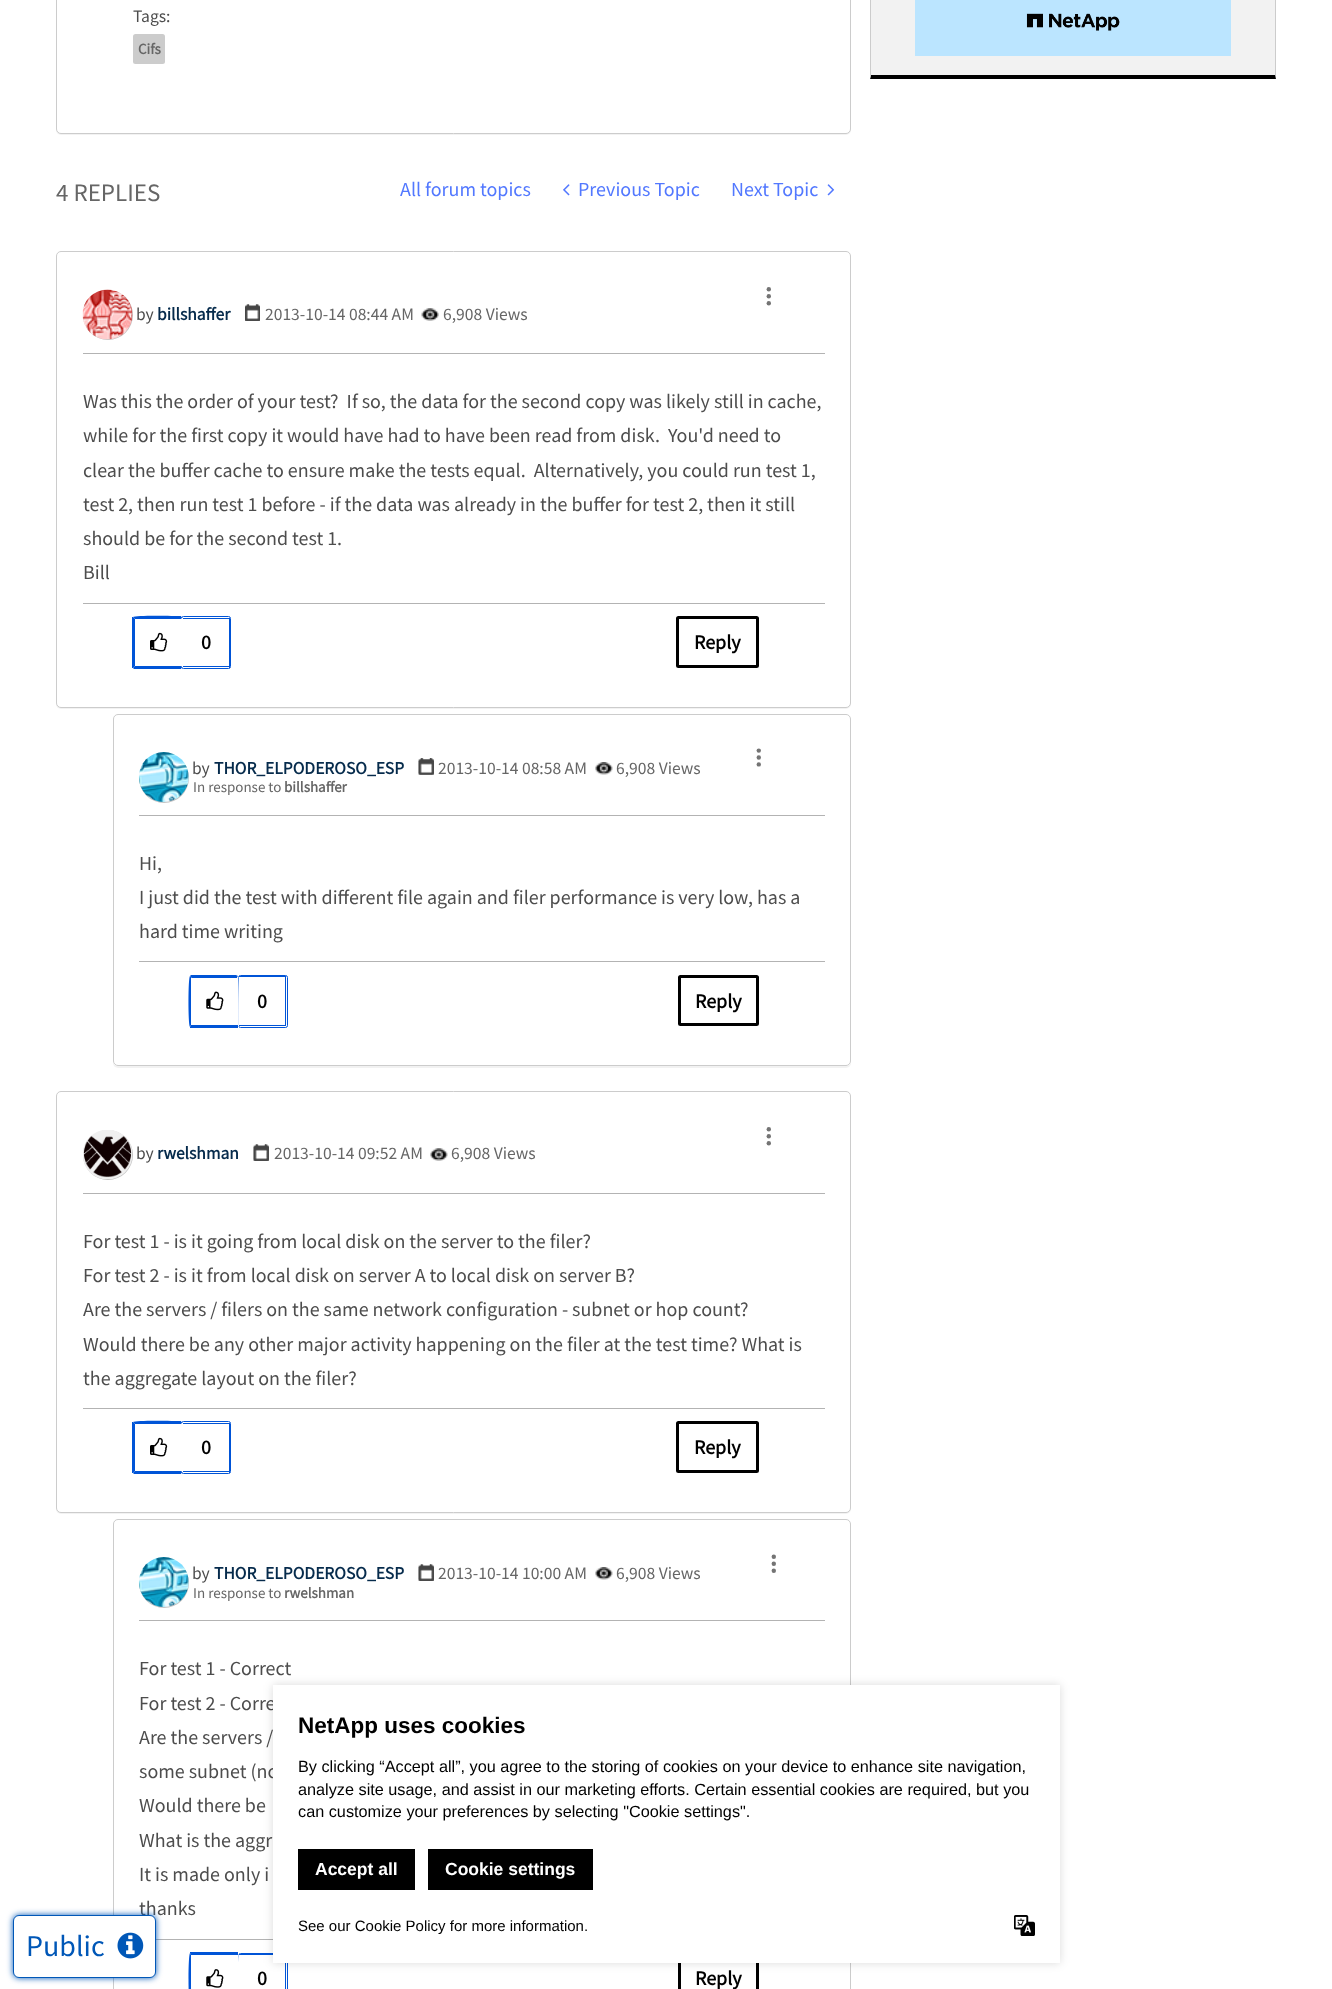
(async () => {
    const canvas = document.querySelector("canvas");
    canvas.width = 1332;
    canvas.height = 1989;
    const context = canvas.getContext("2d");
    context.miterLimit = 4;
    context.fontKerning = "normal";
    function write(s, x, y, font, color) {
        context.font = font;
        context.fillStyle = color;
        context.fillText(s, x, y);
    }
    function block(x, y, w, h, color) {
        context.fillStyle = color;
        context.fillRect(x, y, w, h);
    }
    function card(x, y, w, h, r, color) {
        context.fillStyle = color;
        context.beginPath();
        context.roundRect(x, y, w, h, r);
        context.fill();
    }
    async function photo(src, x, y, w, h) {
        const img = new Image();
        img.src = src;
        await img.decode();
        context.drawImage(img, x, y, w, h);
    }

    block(0, 0, 1332, 1989, "rgb(255, 255, 255)");
    context.fillStyle = "rgba(0, 0, 0, 0.05)";
    context.filter = "blur(0.5px)";
    context.beginPath();
    context.roundRect(56, -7, 795, 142, 5);
    context.fill();
    context.filter = "none";
    context.fillStyle = "rgb(255, 255, 255)";
    context.beginPath();
    context.roundRect(56.5, -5.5, 794, 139, 4.5);
    context.fill();
    context.strokeStyle = "rgb(204, 204, 204)";
    context.stroke();
    write("Tags:", 133, 22, "17.5px Source Sans Pro", "rgb(77, 77, 77)");
    card(133, 34, 32, 30, 2.5, "rgb(204, 204, 204)");
    write("Cifs", 138, 54, "bold 15px Source Sans Pro", "rgb(102, 102, 102)");
    write("4 REPLIES", 56, 201, "25px Source Sans Pro", "rgb(102, 102, 102)");
    write("All forum topics", 400, 196, "20px Source Sans Pro", "rgb(82, 120, 255)");
    await photo("media/1.png", 563, 184, 7, 12);
    write("Previous Topic", 578, 196, "20px Source Sans Pro", "rgb(82, 120, 255)");
    write("Next Topic", 731, 196, "20px Source Sans Pro", "rgb(82, 120, 255)");
    await photo("media/2.png", 827, 184, 8, 12);
    context.fillStyle = "rgba(0, 0, 0, 0.05)";
    context.filter = "blur(0.5px)";
    context.beginPath();
    context.roundRect(56, 253, 795, 456, 5);
    context.fill();
    context.filter = "none";
    context.fillStyle = "rgb(255, 255, 255)";
    context.beginPath();
    context.roundRect(56.5, 251.5, 794, 456, 4.5);
    context.fill();
    context.stroke();
    block(83, 353, 742, 1, "rgb(179, 179, 179)");
    context.fillStyle = "rgb(116, 116, 116)";
    context.beginPath();
    context.arc(768.8, 289.3, 2.2, 0, Math.PI * 2);
    context.fill();
    context.beginPath();
    context.arc(768.8, 296.2, 2.2, 0, Math.PI * 2);
    context.fill();
    context.beginPath();
    context.arc(768.8, 303.2, 2.2, 0, Math.PI * 2);
    context.fill();
    context.fillStyle = "rgb(196, 196, 196)";
    context.filter = "blur(0.5px)";
    context.beginPath();
    context.roundRect(83, 290, 50, 50, 25);
    context.fill();
    context.filter = "none";
    await photo("media/3.png", 82, 289, 51, 51);
    write("by", 136, 320, "17.5px Source Sans Pro", "rgb(77, 77, 77)");
    write("billshaffer", 157, 320, "bold 17.5px Source Sans Pro", "rgb(6, 43, 76)");
    await photo("media/4.png", 245, 304, 15, 17);
    await photo("media/6.png", 245, 304, 15, 17);
    await photo("media/5.png", 245, 304, 15, 17);
    write("2013-10-14 08:44 AM", 265, 320, "17.5px Source Sans Pro", "rgb(102, 102, 102)");
    await photo("media/7.png", 421, 308, 18, 13);
    write("6,908 Views", 443, 320, "17.5px Source Sans Pro", "rgb(102, 102, 102)");
    write("Was this the order of your test?  If so, the data for the second copy was likely still in cache,", 83, 408, "20px Source Sans Pro", "rgb(77, 77, 77)");
    write("while for the first copy it would have had to have been read from disk.  You'd need to", 83, 442, "20px Source Sans Pro", "rgb(77, 77, 77)");
    write("clear the buffer cache to ensure make the tests equal.  Alternatively, you could run test 1,", 83, 477, "20px Source Sans Pro", "rgb(77, 77, 77)");
    write("test 2, then run test 1 before - if the data was already in the buffer for test 2, then it still", 83, 511, "20px Source Sans Pro", "rgb(77, 77, 77)");
    write("should be for the second test 1.", 83, 545, "20px Source Sans Pro", "rgb(77, 77, 77)");
    write("Bill", 83, 579, "20px Source Sans Pro", "rgb(77, 77, 77)");
    block(83, 603, 742, 1, "rgb(179, 179, 179)");
    context.beginPath();
    context.roundRect(181.5, 616.5, 49, 52, 2);
    context.strokeStyle = "rgb(0, 84, 215)";
    context.stroke();
    context.fillStyle = "rgb(0, 84, 215)";
    context.beginPath();
    context.moveTo(133, 617);
    context.bezierCurveTo(135, 615, 175, 616, 181, 616);
    context.lineTo(182, 618);
    context.lineTo(181, 619);
    context.lineTo(135, 619);
    context.closePath();
    context.fill();
    context.fillStyle = "rgb(255, 255, 255)";
    context.beginPath();
    context.moveTo(182, 618);
    context.lineTo(182, 667);
    context.lineTo(181, 666);
    context.lineTo(181, 619);
    context.closePath();
    context.fill();
    context.fillStyle = "rgb(0, 84, 215)";
    context.beginPath();
    context.moveTo(134, 669);
    context.lineTo(133, 668);
    context.lineTo(135, 666);
    context.lineTo(181, 666);
    context.lineTo(182, 667);
    context.lineTo(181, 669);
    context.closePath();
    context.fill();
    context.beginPath();
    context.moveTo(135, 619);
    context.lineTo(135, 666);
    context.lineTo(133, 668);
    context.lineTo(132, 668);
    context.lineTo(132, 617);
    context.lineTo(133, 617);
    context.closePath();
    context.fill();
    await photo("media/8.png", 150, 632, 18, 20);
    block(183, 618, 47, 1, "rgb(0, 84, 215)");
    block(229, 618, 1, 50, "rgb(0, 84, 215)");
    block(183, 666, 47, 1, "rgb(0, 84, 215)");
    write("0", 201, 649, "bold 20px Source Sans Pro", "rgb(0, 0, 0)");
    context.beginPath();
    context.roundRect(677.5, 617.5, 80, 49, 1);
    context.strokeStyle = "rgb(0, 0, 0)";
    context.lineWidth = 3;
    context.stroke();
    write("Reply", 694, 649, "bold 20px Source Sans Pro", "rgb(0, 0, 0)");
    context.save();
    context.beginPath();
    context.moveTo(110, 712);
    context.lineTo(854, 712);
    context.lineTo(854, 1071);
    context.lineTo(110, 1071);
    context.closePath();
    context.moveTo(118, 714);
    context.lineTo(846, 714);
    context.bezierCurveTo(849, 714, 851, 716, 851, 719);
    context.lineTo(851, 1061);
    context.bezierCurveTo(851, 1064, 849, 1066, 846, 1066);
    context.lineTo(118, 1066);
    context.bezierCurveTo(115, 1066, 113, 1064, 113, 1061);
    context.lineTo(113, 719);
    context.bezierCurveTo(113, 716, 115, 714, 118, 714);
    context.closePath();
    context.clip("evenodd");
    context.fillStyle = "rgba(0, 0, 0, 0.05)";
    context.filter = "blur(0.5px)";
    context.beginPath();
    context.roundRect(113, 715, 738, 353, 5);
    context.fill();
    context.filter = "none";
    context.restore();
    context.beginPath();
    context.roundRect(113.5, 714.5, 737, 351, 4.5);
    context.strokeStyle = "rgb(204, 204, 204)";
    context.lineWidth = 1;
    context.stroke();
    block(139, 815, 686, 1, "rgb(179, 179, 179)");
    context.fillStyle = "rgb(116, 116, 116)";
    context.beginPath();
    context.arc(758.8, 750.6, 2.2, 0, Math.PI * 2);
    context.fill();
    context.beginPath();
    context.arc(758.8, 757.5, 2.2, 0, Math.PI * 2);
    context.fill();
    context.beginPath();
    context.arc(758.8, 764.4, 2.2, 0, Math.PI * 2);
    context.fill();
    context.fillStyle = "rgb(196, 196, 196)";
    context.filter = "blur(0.5px)";
    context.beginPath();
    context.roundRect(139, 753, 50, 50, 25);
    context.fill();
    context.filter = "none";
    await photo("media/9.png", 138, 752, 51, 50);
    write("by", 192, 774, "17.5px Source Sans Pro", "rgb(77, 77, 77)");
    write("THOR_ELPODEROSO_ESP", 214, 774, "bold 17.5px Source Sans Pro", "rgb(6, 43, 76)");
    await photo("media/10.png", 418, 758, 16, 17);
    await photo("media/12.png", 418, 758, 16, 17);
    await photo("media/11.png", 418, 758, 16, 17);
    write("2013-10-14 08:58 AM", 438, 774, "17.5px Source Sans Pro", "rgb(102, 102, 102)");
    await photo("media/13.png", 595, 762, 18, 13);
    write("6,908 Views", 616, 774, "17.5px Source Sans Pro", "rgb(102, 102, 102)");
    write("In response to", 193, 792, "15px Source Sans Pro", "rgb(102, 102, 102)");
    write("billshaffer", 284, 792, "bold 15px Source Sans Pro", "rgb(102, 102, 102)");
    write("Hi,", 139, 870, "20px Source Sans Pro", "rgb(77, 77, 77)");
    write("I just did the test with different file again and filer performance", 139, 904, "20px Source Sans Pro", "rgb(77, 77, 77)");
    write("is very low", 661, 904, "20px Source Sans Pro", "rgb(77, 77, 77)");
    write(", has a", 748, 904, "20px Source Sans Pro", "rgb(77, 77, 77)");
    write("hard time writing", 139, 938, "20px Source Sans Pro", "rgb(77, 77, 77)");
    block(139, 961, 686, 1, "rgb(179, 179, 179)");
    context.fillStyle = "rgb(0, 84, 215)";
    context.beginPath();
    context.moveTo(191, 975);
    context.lineTo(190, 976);
    context.lineTo(192, 978);
    context.lineTo(237, 978);
    context.lineTo(238, 976);
    context.lineTo(236, 975);
    context.closePath();
    context.fill();
    context.beginPath();
    context.roundRect(238.5, 975.5, 49, 52, 2);
    context.strokeStyle = "rgb(0, 84, 215)";
    context.stroke();
    context.fillStyle = "rgb(255, 255, 255)";
    context.beginPath();
    context.moveTo(239, 1026);
    context.lineTo(238, 1027);
    context.lineTo(238, 1025);
    context.lineTo(238, 978);
    context.lineTo(237, 978);
    context.lineTo(238, 976);
    context.bezierCurveTo(239, 977, 239, 1021, 239, 1026);
    context.closePath();
    context.fill();
    context.fillStyle = "rgb(0, 84, 215)";
    context.beginPath();
    context.moveTo(190, 1028);
    context.lineTo(190, 1027);
    context.lineTo(191, 1025);
    context.lineTo(238, 1025);
    context.lineTo(238, 1027);
    context.lineTo(238, 1028);
    context.closePath();
    context.fill();
    context.beginPath();
    context.moveTo(191, 978);
    context.lineTo(192, 978);
    context.lineTo(190, 976);
    context.bezierCurveTo(188, 977, 188, 1025, 190, 1027);
    context.lineTo(191, 1025);
    context.closePath();
    context.fill();
    await photo("media/14.png", 206, 991, 18, 20);
    block(239, 976, 47, 1, "rgb(0, 84, 215)");
    block(285, 976, 1, 50, "rgb(0, 84, 215)");
    block(239, 1025, 47, 1, "rgb(0, 84, 215)");
    write("0", 257, 1008, "bold 20px Source Sans Pro", "rgb(0, 0, 0)");
    context.beginPath();
    context.roundRect(679.5, 976.5, 78, 48, 1);
    context.strokeStyle = "rgb(0, 0, 0)";
    context.lineWidth = 3;
    context.stroke();
    write("Reply", 695, 1008, "bold 20px Source Sans Pro", "rgb(0, 0, 0)");
    context.fillStyle = "rgba(0, 0, 0, 0.05)";
    context.filter = "blur(0.5px)";
    context.beginPath();
    context.roundRect(56, 1093, 795, 421, 5);
    context.fill();
    context.filter = "none";
    context.fillStyle = "rgb(255, 255, 255)";
    context.beginPath();
    context.roundRect(56.5, 1091.5, 794, 421, 4.5);
    context.fill();
    context.strokeStyle = "rgb(204, 204, 204)";
    context.lineWidth = 1;
    context.stroke();
    block(83, 1193, 742, 1, "rgb(179, 179, 179)");
    context.fillStyle = "rgb(116, 116, 116)";
    context.beginPath();
    context.arc(768.8, 1129.3, 2.2, 0, Math.PI * 2);
    context.fill();
    context.beginPath();
    context.arc(768.8, 1136.2, 2.2, 0, Math.PI * 2);
    context.fill();
    context.beginPath();
    context.arc(768.8, 1143.2, 2.2, 0, Math.PI * 2);
    context.fill();
    context.fillStyle = "rgb(196, 196, 196)";
    context.filter = "blur(0.5px)";
    context.beginPath();
    context.roundRect(83, 1130, 50, 50, 25);
    context.fill();
    context.filter = "none";
    await photo("media/15.png", 83, 1130, 49, 49);
    write("by", 136, 1159, "17.5px Source Sans Pro", "rgb(77, 77, 77)");
    write("rwelshman", 157, 1159, "bold 17.5px Source Sans Pro", "rgb(6, 43, 76)");
    await photo("media/16.png", 253, 1144, 16, 17);
    await photo("media/18.png", 253, 1144, 16, 17);
    await photo("media/17.png", 253, 1144, 16, 17);
    write("2013-10-14 09:52 AM", 274, 1159, "17.5px Source Sans Pro", "rgb(102, 102, 102)");
    await photo("media/19.png", 430, 1148, 18, 13);
    write("6,908 Views", 451, 1159, "17.5px Source Sans Pro", "rgb(102, 102, 102)");
    write("For test 1 - is it going from local disk on the server to the filer?", 83, 1248, "20px Source Sans Pro", "rgb(77, 77, 77)");
    write("For test 2 - is it from local disk on server A to local disk on server B?", 83, 1282, "20px Source Sans Pro", "rgb(77, 77, 77)");
    write("Are the servers / filers on the same network configuration - subnet or hop count?", 83, 1316, "20px Source Sans Pro", "rgb(77, 77, 77)");
    write("Would there be any other major activity happening on the filer at the test time? What is", 83, 1351, "20px Source Sans Pro", "rgb(77, 77, 77)");
    write("the aggregate layout on the filer?", 83, 1385, "20px Source Sans Pro", "rgb(77, 77, 77)");
    block(83, 1408, 742, 1, "rgb(179, 179, 179)");
    context.beginPath();
    context.roundRect(181.5, 1421.5, 49, 52, 2);
    context.strokeStyle = "rgb(0, 84, 215)";
    context.stroke();
    context.fillStyle = "rgb(0, 84, 215)";
    context.beginPath();
    context.moveTo(133, 1422);
    context.bezierCurveTo(135, 1420, 175, 1421, 181, 1421);
    context.lineTo(182, 1423);
    context.lineTo(181, 1424);
    context.lineTo(135, 1424);
    context.closePath();
    context.fill();
    context.fillStyle = "rgb(255, 255, 255)";
    context.beginPath();
    context.moveTo(182, 1423);
    context.lineTo(182, 1472);
    context.lineTo(181, 1471);
    context.lineTo(181, 1424);
    context.closePath();
    context.fill();
    context.fillStyle = "rgb(0, 84, 215)";
    context.beginPath();
    context.moveTo(134, 1474);
    context.lineTo(133, 1473);
    context.lineTo(135, 1471);
    context.lineTo(181, 1471);
    context.lineTo(182, 1472);
    context.lineTo(181, 1474);
    context.closePath();
    context.fill();
    context.beginPath();
    context.moveTo(135, 1424);
    context.lineTo(135, 1471);
    context.lineTo(133, 1473);
    context.lineTo(132, 1473);
    context.lineTo(132, 1422);
    context.lineTo(133, 1422);
    context.closePath();
    context.fill();
    await photo("media/8.png", 150, 1437, 18, 20);
    block(183, 1423, 47, 1, "rgb(0, 84, 215)");
    block(229, 1423, 1, 50, "rgb(0, 84, 215)");
    block(183, 1471, 47, 1, "rgb(0, 84, 215)");
    write("0", 201, 1454, "bold 20px Source Sans Pro", "rgb(0, 0, 0)");
    context.beginPath();
    context.roundRect(677.5, 1422.5, 80, 49, 1);
    context.strokeStyle = "rgb(0, 0, 0)";
    context.lineWidth = 3;
    context.stroke();
    write("Reply", 694, 1454, "bold 20px Source Sans Pro", "rgb(0, 0, 0)");
    context.beginPath();
    context.roundRect(113.5, 1519.5, 737, 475, 4.5);
    context.strokeStyle = "rgb(204, 204, 204)";
    context.lineWidth = 1;
    context.stroke();
    block(139, 1620, 686, 1, "rgb(179, 179, 179)");
    context.fillStyle = "rgb(116, 116, 116)";
    context.beginPath();
    context.arc(773.8, 1556.8, 2.2, 0, Math.PI * 2);
    context.fill();
    context.beginPath();
    context.arc(773.8, 1563.8, 2.2, 0, Math.PI * 2);
    context.fill();
    context.beginPath();
    context.arc(773.8, 1570.7, 2.2, 0, Math.PI * 2);
    context.fill();
    context.fillStyle = "rgb(196, 196, 196)";
    context.filter = "blur(0.5px)";
    context.beginPath();
    context.roundRect(139, 1558, 50, 50, 25);
    context.fill();
    context.filter = "none";
    await photo("media/20.png", 138, 1557, 51, 50);
    write("by", 192, 1579, "17.5px Source Sans Pro", "rgb(77, 77, 77)");
    write("THOR_ELPODEROSO_ESP", 214, 1579, "bold 17.5px Source Sans Pro", "rgb(6, 43, 76)");
    await photo("media/16.png", 418, 1564, 16, 17);
    await photo("media/18.png", 418, 1564, 16, 17);
    await photo("media/17.png", 418, 1564, 16, 17);
    write("2013-10-14 10:00 AM", 438, 1579, "17.5px Source Sans Pro", "rgb(102, 102, 102)");
    await photo("media/13.png", 595, 1567, 18, 13);
    write("6,908 Views", 616, 1579, "17.5px Source Sans Pro", "rgb(102, 102, 102)");
    write("In response to", 193, 1598, "15px Source Sans Pro", "rgb(102, 102, 102)");
    write("rwelshman", 284, 1598, "bold 15px Source Sans Pro", "rgb(102, 102, 102)");
    write("For test 1 - Correct", 139, 1675, "20px Source Sans Pro", "rgb(77, 77, 77)");
    write("For test 2 - Corre", 139, 1710, "20px Source Sans Pro", "rgb(77, 77, 77)");
    write("Are the servers /", 139, 1744, "20px Source Sans Pro", "rgb(77, 77, 77)");
    write("some subnet (no", 139, 1778, "20px Source Sans Pro", "rgb(77, 77, 77)");
    write("Would there be", 139, 1812, "20px Source Sans Pro", "rgb(77, 77, 77)");
    write("What is the aggr", 139, 1847, "20px Source Sans Pro", "rgb(77, 77, 77)");
    write("It is made only i", 139, 1881, "20px Source Sans Pro", "rgb(77, 77, 77)");
    write("thanks", 139, 1915, "20px Source Sans Pro", "rgb(77, 77, 77)");
    block(156, 1939, 117, 1, "rgb(179, 179, 179)");
    context.fillStyle = "rgb(0, 84, 215)";
    context.beginPath();
    context.moveTo(190, 1953);
    context.lineTo(190, 1952);
    context.lineTo(238, 1952);
    context.lineTo(238, 1953);
    context.lineTo(238, 1955);
    context.lineTo(191, 1955);
    context.closePath();
    context.fill();
    context.beginPath();
    context.roundRect(238.5, 1953.5, 49, 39, 2);
    context.strokeStyle = "rgb(0, 84, 215)";
    context.stroke();
    block(239, 1954, 34, 1, "rgb(0, 84, 215)");
    context.fillStyle = "rgb(255, 255, 255)";
    context.beginPath();
    context.moveTo(239, 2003);
    context.lineTo(238, 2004);
    context.lineTo(237, 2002);
    context.lineTo(238, 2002);
    context.lineTo(238, 1955);
    context.lineTo(238, 1953);
    context.bezierCurveTo(240, 1955, 239, 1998, 239, 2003);
    context.closePath();
    context.fill();
    context.fillStyle = "rgb(0, 84, 215)";
    context.beginPath();
    context.moveTo(191, 1955);
    context.lineTo(191, 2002);
    context.lineTo(192, 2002);
    context.lineTo(190, 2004);
    context.bezierCurveTo(188, 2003, 188, 1955, 190, 1953);
    context.closePath();
    context.fill();
    await photo("media/21.png", 206, 1969, 18, 19);
    block(285, 1963, 1, 26, "rgb(0, 84, 215)");
    write("0", 257, 1985, "bold 20px Source Sans Pro", "rgb(0, 0, 0)");
    context.strokeStyle = "rgb(0, 0, 0)";
    context.lineWidth = 3;
    context.strokeRect(679.5, 1954.5, 78, 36);
    write("Reply", 695, 1985, "bold 20px Source Sans Pro", "rgb(0, 0, 0)");
    block(871, 0, 404, 75, "rgb(242, 242, 242)");
    context.fillStyle = "rgb(204, 204, 204)";
    context.beginPath();
    context.moveTo(1276, -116);
    context.lineTo(1276, 79);
    context.lineTo(1275, 75);
    context.lineTo(1275, -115);
    context.closePath();
    context.fill();
    context.fillStyle = "rgb(0, 0, 0)";
    context.beginPath();
    context.moveTo(1276, 79);
    context.lineTo(870, 79);
    context.lineTo(871, 75);
    context.lineTo(1275, 75);
    context.closePath();
    context.fill();
    context.fillStyle = "rgb(204, 204, 204)";
    context.beginPath();
    context.moveTo(870, 79);
    context.lineTo(870, -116);
    context.lineTo(871, -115);
    context.lineTo(871, 75);
    context.closePath();
    context.fill();
    await photo("media/22.png", 915, 0, 316, 56);
    context.fillStyle = "rgb(0, 87, 183)";
    context.filter = "blur(3px)";
    context.beginPath();
    context.roundRect(13, 1915, 143, 63, 6);
    context.fill();
    context.filter = "none";
    context.fillStyle = "rgb(255, 255, 255)";
    context.beginPath();
    context.roundRect(13.5, 1915.5, 142, 62, 5.5);
    context.fill();
    context.strokeStyle = "rgb(0, 87, 183)";
    context.lineWidth = 1;
    context.stroke();
    write("Public", 26, 1956, "30px Source Sans Pro", "rgb(0, 87, 183)");
    await photo("media/23.png", 117, 1932, 27, 27);
    context.fillStyle = "rgba(0, 0, 0, 0.15)";
    context.filter = "blur(5px)";
    context.beginPath();
    context.rect(273, 1685, 787, 278);
    context.fill();
    context.filter = "none";
    block(273, 1685, 787, 278, "rgb(255, 255, 255)");
    write("NetApp uses cookies", 298, 1733, "bold 22.5px Liberation Sans", "rgb(0, 0, 0)");
    write("By clicking “Accept all”, you agree to the storing of cookies on your device to enhance site navigation,", 298, 1772, "16.25px Liberation Sans", "rgb(0, 0, 0)");
    write("analyze site usage, and assist in our marketing efforts. Certain essential cookies are required, but you", 298, 1795, "16.25px Liberation Sans", "rgb(0, 0, 0)");
    write("can customize your preferences by selecting \"Cookie settings\".", 298, 1817, "16.25px Liberation Sans", "rgb(0, 0, 0)");
    block(298, 1849, 117, 41, "rgb(0, 0, 0)");
    write("Accept all", 315, 1875, "bold 17.5px Liberation Sans", "rgb(255, 255, 255)");
    block(428, 1849, 165, 41, "rgb(0, 0, 0)");
    write("Cookie settings", 445, 1875, "bold 17.5px Liberation Sans", "rgb(255, 255, 255)");
    write("See our Cookie Policy for more information.", 298, 1931, "15px Liberation Sans", "rgb(0, 0, 0)");
    await photo("media/24.png", 1014, 1915, 21, 21);
})();
